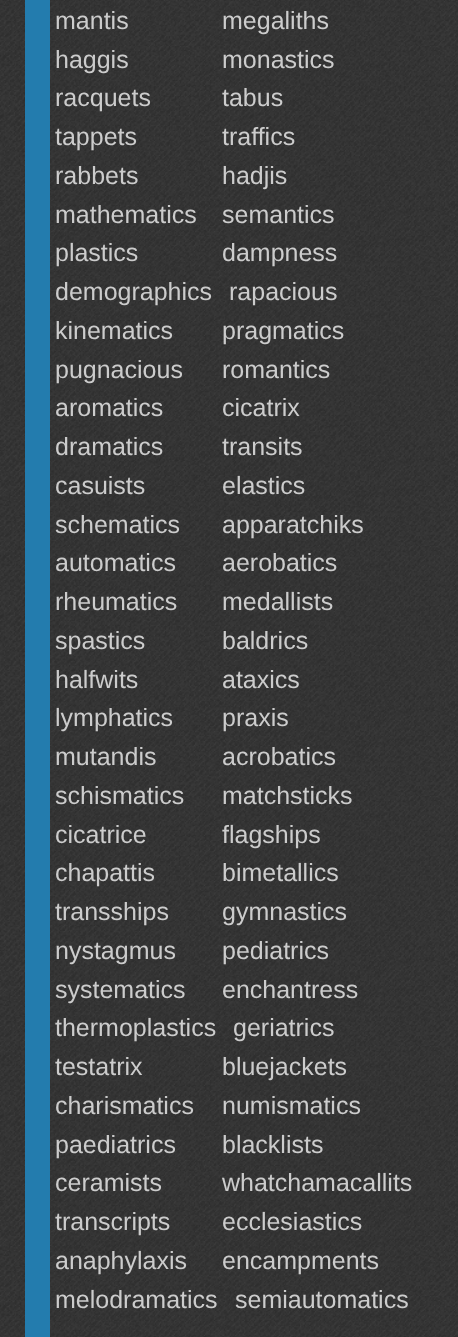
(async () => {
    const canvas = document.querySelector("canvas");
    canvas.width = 458;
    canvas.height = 1337;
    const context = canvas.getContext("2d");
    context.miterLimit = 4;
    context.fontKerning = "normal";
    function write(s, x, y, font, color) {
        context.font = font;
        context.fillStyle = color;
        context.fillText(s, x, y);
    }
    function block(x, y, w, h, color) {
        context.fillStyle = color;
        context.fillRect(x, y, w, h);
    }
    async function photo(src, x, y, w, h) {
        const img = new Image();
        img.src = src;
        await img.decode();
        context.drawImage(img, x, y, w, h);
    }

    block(0, 0, 458, 1337, "rgb(255, 255, 255)");
    await photo("media/1.png", 0, 0, 458, 1337);
    block(25, 0, 25, 1337, "rgb(35, 124, 174)");
    write("mantis", 55, 29, "25px Liberation Sans", "rgb(204, 204, 204)");
    write("megaliths", 222, 29, "25px Liberation Sans", "rgb(204, 204, 204)");
    write("haggis", 55, 68, "25px Liberation Sans", "rgb(204, 204, 204)");
    write("monastics", 222, 68, "25px Liberation Sans", "rgb(204, 204, 204)");
    write("racquets", 55, 106, "25px Liberation Sans", "rgb(204, 204, 204)");
    write("tabus", 222, 106, "25px Liberation Sans", "rgb(204, 204, 204)");
    write("tappets", 55, 145, "25px Liberation Sans", "rgb(204, 204, 204)");
    write("traffics", 222, 145, "25px Liberation Sans", "rgb(204, 204, 204)");
    write("rabbets", 55, 184, "25px Liberation Sans", "rgb(204, 204, 204)");
    write("hadjis", 222, 184, "25px Liberation Sans", "rgb(204, 204, 204)");
    write("mathematics", 55, 223, "25px Liberation Sans", "rgb(204, 204, 204)");
    write("semantics", 222, 223, "25px Liberation Sans", "rgb(204, 204, 204)");
    write("plastics", 55, 261, "25px Liberation Sans", "rgb(204, 204, 204)");
    write("dampness", 222, 261, "25px Liberation Sans", "rgb(204, 204, 204)");
    write("demographics", 55, 300, "25px Liberation Sans", "rgb(204, 204, 204)");
    write("rapacious", 229, 300, "25px Liberation Sans", "rgb(204, 204, 204)");
    write("kinematics", 55, 339, "25px Liberation Sans", "rgb(204, 204, 204)");
    write("pragmatics", 222, 339, "25px Liberation Sans", "rgb(204, 204, 204)");
    write("pugnacious", 55, 378, "25px Liberation Sans", "rgb(204, 204, 204)");
    write("romantics", 222, 378, "25px Liberation Sans", "rgb(204, 204, 204)");
    write("aromatics", 55, 416, "25px Liberation Sans", "rgb(204, 204, 204)");
    write("cicatrix", 222, 416, "25px Liberation Sans", "rgb(204, 204, 204)");
    write("dramatics", 55, 455, "25px Liberation Sans", "rgb(204, 204, 204)");
    write("transits", 222, 455, "25px Liberation Sans", "rgb(204, 204, 204)");
    write("casuists", 55, 494, "25px Liberation Sans", "rgb(204, 204, 204)");
    write("elastics", 222, 494, "25px Liberation Sans", "rgb(204, 204, 204)");
    write("schematics", 55, 533, "25px Liberation Sans", "rgb(204, 204, 204)");
    write("apparatchiks", 222, 533, "25px Liberation Sans", "rgb(204, 204, 204)");
    write("automatics", 55, 571, "25px Liberation Sans", "rgb(204, 204, 204)");
    write("aerobatics", 222, 571, "25px Liberation Sans", "rgb(204, 204, 204)");
    write("rheumatics", 55, 610, "25px Liberation Sans", "rgb(204, 204, 204)");
    write("medallists", 222, 610, "25px Liberation Sans", "rgb(204, 204, 204)");
    write("spastics", 55, 649, "25px Liberation Sans", "rgb(204, 204, 204)");
    write("baldrics", 222, 649, "25px Liberation Sans", "rgb(204, 204, 204)");
    write("halfwits", 55, 688, "25px Liberation Sans", "rgb(204, 204, 204)");
    write("ataxics", 222, 688, "25px Liberation Sans", "rgb(204, 204, 204)");
    write("lymphatics", 55, 726, "25px Liberation Sans", "rgb(204, 204, 204)");
    write("praxis", 222, 726, "25px Liberation Sans", "rgb(204, 204, 204)");
    write("mutandis", 55, 765, "25px Liberation Sans", "rgb(204, 204, 204)");
    write("acrobatics", 222, 765, "25px Liberation Sans", "rgb(204, 204, 204)");
    write("schismatics", 55, 804, "25px Liberation Sans", "rgb(204, 204, 204)");
    write("matchsticks", 222, 804, "25px Liberation Sans", "rgb(204, 204, 204)");
    write("cicatrice", 55, 843, "25px Liberation Sans", "rgb(204, 204, 204)");
    write("flagships", 222, 843, "25px Liberation Sans", "rgb(204, 204, 204)");
    write("chapattis", 55, 881, "25px Liberation Sans", "rgb(204, 204, 204)");
    write("bimetallics", 222, 881, "25px Liberation Sans", "rgb(204, 204, 204)");
    write("transships", 55, 920, "25px Liberation Sans", "rgb(204, 204, 204)");
    write("gymnastics", 222, 920, "25px Liberation Sans", "rgb(204, 204, 204)");
    write("nystagmus", 55, 959, "25px Liberation Sans", "rgb(204, 204, 204)");
    write("pediatrics", 222, 959, "25px Liberation Sans", "rgb(204, 204, 204)");
    write("systematics", 55, 998, "25px Liberation Sans", "rgb(204, 204, 204)");
    write("enchantress", 222, 998, "25px Liberation Sans", "rgb(204, 204, 204)");
    write("thermoplastics", 55, 1036, "25px Liberation Sans", "rgb(204, 204, 204)");
    write("geriatrics", 233, 1036, "25px Liberation Sans", "rgb(204, 204, 204)");
    write("testatrix", 55, 1075, "25px Liberation Sans", "rgb(204, 204, 204)");
    write("bluejackets", 222, 1075, "25px Liberation Sans", "rgb(204, 204, 204)");
    write("charismatics", 55, 1114, "25px Liberation Sans", "rgb(204, 204, 204)");
    write("numismatics", 222, 1114, "25px Liberation Sans", "rgb(204, 204, 204)");
    write("paediatrics", 55, 1153, "25px Liberation Sans", "rgb(204, 204, 204)");
    write("blacklists", 222, 1153, "25px Liberation Sans", "rgb(204, 204, 204)");
    write("ceramists", 55, 1191, "25px Liberation Sans", "rgb(204, 204, 204)");
    write("whatchamacallits", 222, 1191, "25px Liberation Sans", "rgb(204, 204, 204)");
    write("transcripts", 55, 1230, "25px Liberation Sans", "rgb(204, 204, 204)");
    write("ecclesiastics", 222, 1230, "25px Liberation Sans", "rgb(204, 204, 204)");
    write("anaphylaxis", 55, 1269, "25px Liberation Sans", "rgb(204, 204, 204)");
    write("encampments", 222, 1269, "25px Liberation Sans", "rgb(204, 204, 204)");
    write("melodramatics", 55, 1308, "25px Liberation Sans", "rgb(204, 204, 204)");
    write("semiautomatics", 235, 1308, "25px Liberation Sans", "rgb(204, 204, 204)");
})();
